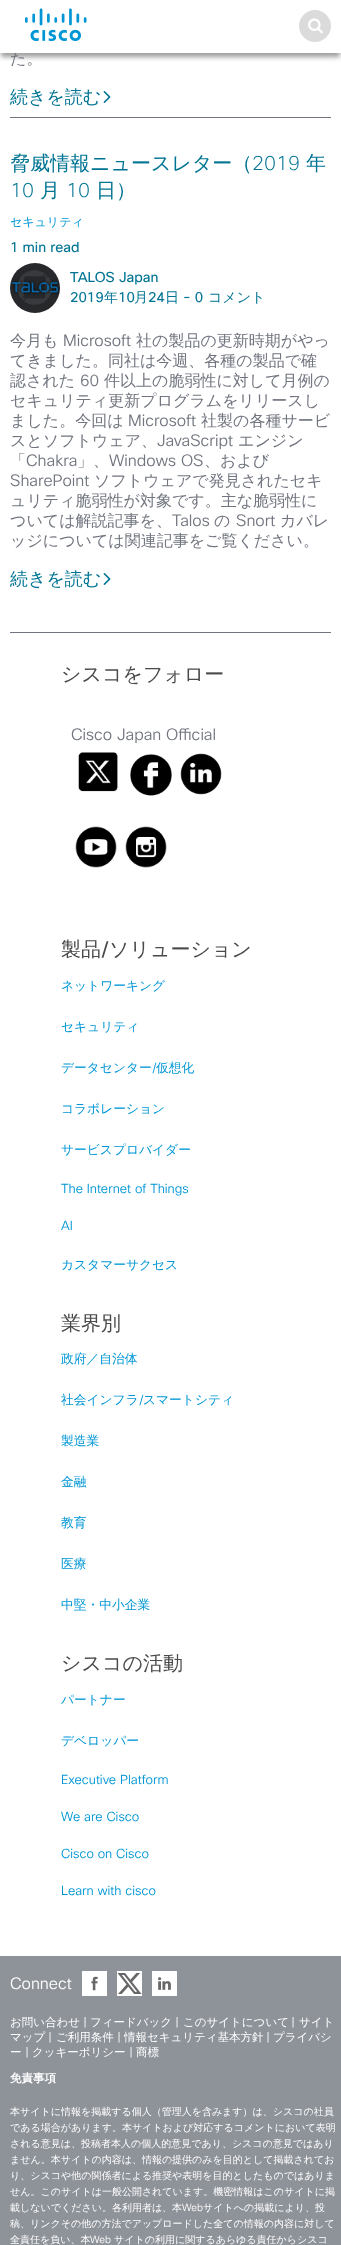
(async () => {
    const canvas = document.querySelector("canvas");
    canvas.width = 341;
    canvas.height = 2245;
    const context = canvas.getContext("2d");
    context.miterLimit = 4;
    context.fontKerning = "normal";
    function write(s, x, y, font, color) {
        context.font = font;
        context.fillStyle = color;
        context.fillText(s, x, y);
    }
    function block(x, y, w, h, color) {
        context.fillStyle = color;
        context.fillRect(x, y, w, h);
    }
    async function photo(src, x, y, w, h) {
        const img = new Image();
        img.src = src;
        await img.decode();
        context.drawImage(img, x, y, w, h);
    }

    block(0, 0, 341, 2245, "rgb(255, 255, 255)");
    context.fillStyle = "rgba(50, 50, 50, 0.48)";
    context.filter = "blur(2.5px)";
    context.beginPath();
    context.rect(1, 6, 339, 51);
    context.fill();
    context.filter = "none";
    write("た。", 10, 64, "500 16px WenQuanYi Zen Hei", "rgb(113, 117, 127)");
    block(0, 1, 341, 52, "rgb(255, 255, 255)");
    await photo("media/1.png", 25, 8, 62, 33);
    context.fillStyle = "rgb(219, 219, 219)";
    context.beginPath();
    context.arc(315, 26, 16, 0, Math.PI * 2);
    context.fill();
    await photo("media/2.png", 308, 18, 15, 16);
    block(10, 632, 321, 1, "rgb(113, 117, 127)");
    write("続きを読む", 10, 103, "500 18px WenQuanYi Zen Hei", "rgb(0, 116, 147)");
    await photo("media/3.png", 103, 91, 8, 12);
    block(10, 117, 321, 1, "rgb(113, 117, 127)");
    write("脅威情報ニュースレター（", 10, 170, "500 20px WenQuanYi Zen Hei", "rgb(0, 116, 147)");
    write("2019", 252, 170, "300 20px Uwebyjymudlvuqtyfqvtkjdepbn", "rgb(0, 116, 147)");
    write("年", 306, 170, "500 20px WenQuanYi Zen Hei", "rgb(0, 116, 147)");
    write("10", 10, 197, "300 20px Uwebyjymudlvuqtyfqvtkjdepbn", "rgb(0, 116, 147)");
    write("月", 40, 197, "500 20px WenQuanYi Zen Hei", "rgb(0, 116, 147)");
    write("10", 66, 197, "300 20px Uwebyjymudlvuqtyfqvtkjdepbn", "rgb(0, 116, 147)");
    write("日）", 96, 197, "500 20px WenQuanYi Zen Hei", "rgb(0, 116, 147)");
    write("セキュリティ", 10, 226, "500 12px WenQuanYi Zen Hei", "rgb(0, 150, 214)");
    write("1 min read", 10, 252, "14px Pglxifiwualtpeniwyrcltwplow", "rgb(0, 116, 147)");
    await photo("media/4.png", 10, 263, 50, 50);
    write("TALOS Japan", 70, 282, "14px Pglxifiwualtpeniwyrcltwplow", "rgb(0, 116, 147)");
    write("2019", 70, 302, "14px Pglxifiwualtpeniwyrcltwplow", "rgb(0, 116, 147)");
    write("年", 104, 302, "500 14px WenQuanYi Zen Hei", "rgb(0, 116, 147)");
    write("10", 118, 302, "14px Pglxifiwualtpeniwyrcltwplow", "rgb(0, 116, 147)");
    write("月", 134, 302, "500 14px WenQuanYi Zen Hei", "rgb(0, 116, 147)");
    write("24", 148, 302, "14px Pglxifiwualtpeniwyrcltwplow", "rgb(0, 116, 147)");
    write("日", 165, 302, "500 14px WenQuanYi Zen Hei", "rgb(0, 116, 147)");
    write("- 0", 183, 302, "14px Pglxifiwualtpeniwyrcltwplow", "rgb(0, 116, 147)");
    write("コメント", 208, 302, "500 14px WenQuanYi Zen Hei", "rgb(0, 116, 147)");
    write("今月も", 10, 346, "500 16px WenQuanYi Zen Hei", "rgb(113, 117, 127)");
    write("Microsoft", 63, 346, "300 16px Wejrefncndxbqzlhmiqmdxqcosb", "rgb(113, 117, 127)");
    write("社の製品の更新時期がやっ", 136, 346, "500 16px WenQuanYi Zen Hei", "rgb(113, 117, 127)");
    write("てきました。同社は今週、各種の製品で確", 10, 366, "500 16px WenQuanYi Zen Hei", "rgb(113, 117, 127)");
    write("認された", 10, 386, "500 16px WenQuanYi Zen Hei", "rgb(113, 117, 127)");
    write("60", 80, 386, "300 16px Wejrefncndxbqzlhmiqmdxqcosb", "rgb(113, 117, 127)");
    write("件以上の脆弱性に対して月例の", 104, 386, "500 16px WenQuanYi Zen Hei", "rgb(113, 117, 127)");
    write("セキュリティ更新プログラムをリリースし", 10, 406, "500 16px WenQuanYi Zen Hei", "rgb(113, 117, 127)");
    write("ました。今回は", 10, 426, "500 16px WenQuanYi Zen Hei", "rgb(113, 117, 127)");
    write("Microsoft", 128, 426, "300 16px Wejrefncndxbqzlhmiqmdxqcosb", "rgb(113, 117, 127)");
    write("社製の各種サービ", 201, 426, "500 16px WenQuanYi Zen Hei", "rgb(113, 117, 127)");
    write("スとソフトウェア、", 10, 446, "500 16px WenQuanYi Zen Hei", "rgb(113, 117, 127)");
    write("JavaScript", 157, 446, "300 16px Wejrefncndxbqzlhmiqmdxqcosb", "rgb(113, 117, 127)");
    write("エンジン", 238, 446, "500 16px WenQuanYi Zen Hei", "rgb(113, 117, 127)");
    write("「", 10, 466, "500 16px WenQuanYi Zen Hei", "rgb(113, 117, 127)");
    write("Chakra", 26, 466, "300 16px Wejrefncndxbqzlhmiqmdxqcosb", "rgb(113, 117, 127)");
    write("」、", 77, 466, "500 16px WenQuanYi Zen Hei", "rgb(113, 117, 127)");
    write("Windows OS", 109, 466, "300 16px Wejrefncndxbqzlhmiqmdxqcosb", "rgb(113, 117, 127)");
    write("、および", 204, 466, "500 16px WenQuanYi Zen Hei", "rgb(113, 117, 127)");
    write("SharePoint", 10, 486, "300 16px Wejrefncndxbqzlhmiqmdxqcosb", "rgb(113, 117, 127)");
    write("ソフトウェアで発見されたセキ", 94, 486, "500 16px WenQuanYi Zen Hei", "rgb(113, 117, 127)");
    write("ュリティ脆弱性が対象です。主な脆弱性に", 10, 506, "500 16px WenQuanYi Zen Hei", "rgb(113, 117, 127)");
    write("ついては解説記事を、", 10, 526, "500 16px WenQuanYi Zen Hei", "rgb(113, 117, 127)");
    write("Talos", 172, 526, "300 16px Wejrefncndxbqzlhmiqmdxqcosb", "rgb(113, 117, 127)");
    write("の", 214, 526, "500 16px WenQuanYi Zen Hei", "rgb(113, 117, 127)");
    write("Snort", 236, 526, "300 16px Wejrefncndxbqzlhmiqmdxqcosb", "rgb(113, 117, 127)");
    write("カバレ", 280, 526, "500 16px WenQuanYi Zen Hei", "rgb(113, 117, 127)");
    write("ッジについては関連記事をご覧ください。", 10, 546, "500 16px WenQuanYi Zen Hei", "rgb(113, 117, 127)");
    write("続きを読む", 10, 585, "500 18px WenQuanYi Zen Hei", "rgb(0, 116, 147)");
    await photo("media/3.png", 103, 573, 8, 12);
    write("シスコをフォロー", 61, 681, "500 20px WenQuanYi Zen Hei", "rgb(74, 74, 74)");
    write("Cisco Japan Official", 71, 740, "300 16px Wejrefncndxbqzlhmiqmdxqcosb", "rgb(113, 117, 127)");
    await photo("media/5.png", 78, 752, 40, 40);
    await photo("media/6.png", 130, 754, 42, 42);
    await photo("media/7.png", 180, 753, 42, 42);
    await photo("media/8.png", 75, 826, 42, 42);
    await photo("media/9.png", 125, 826, 42, 42);
    write("製品", 61, 956, "500 20px WenQuanYi Zen Hei", "rgb(74, 74, 74)");
    write("/", 101, 956, "20px Pglxifiwualtpeniwyrcltwplow", "rgb(74, 74, 74)");
    write("ソリューション", 109, 956, "500 20px WenQuanYi Zen Hei", "rgb(74, 74, 74)");
    write("ネットワーキング", 61, 990, "500 12.75px WenQuanYi Zen Hei", "rgb(0, 150, 214)");
    write("セキュリティ", 61, 1031, "500 12.75px WenQuanYi Zen Hei", "rgb(0, 150, 214)");
    write("データセンター", 61, 1072, "500 12.75px WenQuanYi Zen Hei", "rgb(0, 150, 214)");
    write("/", 152, 1072, "300 12.75px Wejrefncndxbqzlhmiqmdxqcosb", "rgb(0, 150, 214)");
    write("仮想化", 156, 1072, "500 12.75px WenQuanYi Zen Hei", "rgb(0, 150, 214)");
    write("コラボレーション", 61, 1113, "500 12.75px WenQuanYi Zen Hei", "rgb(0, 150, 214)");
    write("サービスプロバイダー", 61, 1154, "500 12.75px WenQuanYi Zen Hei", "rgb(0, 150, 214)");
    write("The Internet of Things", 61, 1193, "300 12.75px Wejrefncndxbqzlhmiqmdxqcosb", "rgb(0, 150, 214)");
    write("AI", 61, 1230, "300 12.75px Wejrefncndxbqzlhmiqmdxqcosb", "rgb(0, 150, 214)");
    write("カスタマーサクセス", 61, 1269, "500 12.75px WenQuanYi Zen Hei", "rgb(0, 150, 214)");
    write("業界別", 61, 1330, "500 20px WenQuanYi Zen Hei", "rgb(74, 74, 74)");
    write("政府／自治体", 61, 1363, "500 12.75px WenQuanYi Zen Hei", "rgb(0, 150, 214)");
    write("社会インフラ", 61, 1404, "500 12.75px WenQuanYi Zen Hei", "rgb(0, 150, 214)");
    write("/", 139, 1404, "300 12.75px Wejrefncndxbqzlhmiqmdxqcosb", "rgb(0, 150, 214)");
    write("スマートシティ", 143, 1404, "500 12.75px WenQuanYi Zen Hei", "rgb(0, 150, 214)");
    write("製造業", 61, 1445, "500 12.75px WenQuanYi Zen Hei", "rgb(0, 150, 214)");
    write("金融", 61, 1486, "500 12.75px WenQuanYi Zen Hei", "rgb(0, 150, 214)");
    write("教育", 61, 1527, "500 12.75px WenQuanYi Zen Hei", "rgb(0, 150, 214)");
    write("医療", 61, 1568, "500 12.75px WenQuanYi Zen Hei", "rgb(0, 150, 214)");
    write("中堅・中小企業", 61, 1609, "500 12.75px WenQuanYi Zen Hei", "rgb(0, 150, 214)");
    write("シスコの活動", 61, 1670, "500 20px WenQuanYi Zen Hei", "rgb(74, 74, 74)");
    write("パートナー", 61, 1704, "500 12.75px WenQuanYi Zen Hei", "rgb(0, 150, 214)");
    write("デベロッパー", 61, 1745, "500 12.75px WenQuanYi Zen Hei", "rgb(0, 150, 214)");
    write("Executive Platform", 61, 1784, "300 12.75px Wejrefncndxbqzlhmiqmdxqcosb", "rgb(0, 150, 214)");
    write("We are Cisco", 61, 1821, "300 12.75px Wejrefncndxbqzlhmiqmdxqcosb", "rgb(0, 150, 214)");
    write("Cisco on Cisco", 61, 1858, "300 12.75px Wejrefncndxbqzlhmiqmdxqcosb", "rgb(0, 150, 214)");
    write("Learn with cisco", 61, 1895, "300 12.75px Wejrefncndxbqzlhmiqmdxqcosb", "rgb(0, 150, 214)");
    block(0, 1956, 341, 289, "rgb(142, 146, 153)");
    write("Connect", 10, 1989, "300 16px Wejrefncndxbqzlhmiqmdxqcosb", "rgb(255, 255, 255)");
    block(82, 1971, 25, 25, "rgb(255, 255, 255)");
    await photo("media/10.png", 91, 1976, 7, 15);
    block(117, 1971, 25, 25, "rgb(255, 255, 255)");
    await photo("media/11.png", 117, 1973, 25, 21);
    block(152, 1971, 25, 25, "rgb(255, 255, 255)");
    await photo("media/12.png", 158, 1977, 13, 13);
    write("お問い合わせ", 10, 2026, "500 11.5px WenQuanYi Zen Hei", "rgb(255, 255, 255)");
    write("|", 83, 2026, "300 11.5px Wejrefncndxbqzlhmiqmdxqcosb", "rgb(255, 255, 255)");
    write("フィードバック", 90, 2026, "500 11.5px WenQuanYi Zen Hei", "rgb(255, 255, 255)");
    write("|", 175, 2026, "300 11.5px Wejrefncndxbqzlhmiqmdxqcosb", "rgb(255, 255, 255)");
    write("このサイトについて", 183, 2026, "500 11.5px WenQuanYi Zen Hei", "rgb(255, 255, 255)");
    write("|", 291, 2026, "300 11.5px Wejrefncndxbqzlhmiqmdxqcosb", "rgb(255, 255, 255)");
    write("サイト", 299, 2026, "500 11.5px WenQuanYi Zen Hei", "rgb(255, 255, 255)");
    write("マップ", 10, 2041, "500 11.5px WenQuanYi Zen Hei", "rgb(255, 255, 255)");
    write("|", 48, 2041, "300 11.5px Wejrefncndxbqzlhmiqmdxqcosb", "rgb(255, 255, 255)");
    write("ご利用条件", 56, 2041, "500 11.5px WenQuanYi Zen Hei", "rgb(255, 255, 255)");
    write("|", 117, 2041, "300 11.5px Wejrefncndxbqzlhmiqmdxqcosb", "rgb(255, 255, 255)");
    write("情報セキュリティ基本方針", 124, 2041, "500 11.5px WenQuanYi Zen Hei", "rgb(255, 255, 255)");
    write("|", 266, 2041, "300 11.5px Wejrefncndxbqzlhmiqmdxqcosb", "rgb(255, 255, 255)");
    write("プライバシ", 273, 2041, "500 11.5px WenQuanYi Zen Hei", "rgb(255, 255, 255)");
    write("ー", 10, 2056, "500 11.5px WenQuanYi Zen Hei", "rgb(255, 255, 255)");
    write("|", 25, 2056, "300 11.5px Wejrefncndxbqzlhmiqmdxqcosb", "rgb(255, 255, 255)");
    write("クッキーポリシー", 32, 2056, "500 11.5px WenQuanYi Zen Hei", "rgb(255, 255, 255)");
    write("|", 129, 2056, "300 11.5px Wejrefncndxbqzlhmiqmdxqcosb", "rgb(255, 255, 255)");
    write("商標", 136, 2056, "500 11.5px WenQuanYi Zen Hei", "rgb(255, 255, 255)");
    write("免責事項", 10, 2082, "bold 11.5px WenQuanYi Zen Hei", "rgb(255, 255, 255)");
    write("本サイトに情報を掲載する個人（管理人を含みます）は、シスコの社員", 10, 2115, "500 10px WenQuanYi Zen Hei", "rgb(255, 255, 255)");
    write("である場合があります。本サイトおよび対応するコメントにおいて表明", 10, 2131, "500 10px WenQuanYi Zen Hei", "rgb(255, 255, 255)");
    write("される意見は、投稿者本人の個人的意見であり、シスコの意見ではあり", 10, 2147, "500 10px WenQuanYi Zen Hei", "rgb(255, 255, 255)");
    write("ません。本サイトの内容は、情報の提供のみを目的として掲載されてお", 10, 2163, "500 10px WenQuanYi Zen Hei", "rgb(255, 255, 255)");
    write("り、シスコや他の関係者による推奨や表明を目的としたものではありま", 10, 2179, "500 10px WenQuanYi Zen Hei", "rgb(255, 255, 255)");
    write("せん。このサイトは一般公開されています。機密情報はこのサイトに掲", 10, 2195, "500 10px WenQuanYi Zen Hei", "rgb(255, 255, 255)");
    write("載しないでください。各利用者は、本", 10, 2211, "500 10px WenQuanYi Zen Hei", "rgb(255, 255, 255)");
    write("Web", 182, 2211, "300 10px Wejrefncndxbqzlhmiqmdxqcosb", "rgb(255, 255, 255)");
    write("サイトへの掲載により、投", 203, 2211, "500 10px WenQuanYi Zen Hei", "rgb(255, 255, 255)");
    write("稿、リンクその他の方法でアップロードした全ての情報の内容に対して", 10, 2227, "500 10px WenQuanYi Zen Hei", "rgb(255, 255, 255)");
    write("全責任を負い、本", 10, 2243, "500 10px WenQuanYi Zen Hei", "rgb(255, 255, 255)");
    write("Web", 90, 2243, "300 10px Wejrefncndxbqzlhmiqmdxqcosb", "rgb(255, 255, 255)");
    write("サイトの利用に関するあらゆる責任からシスコ", 114, 2243, "500 10px WenQuanYi Zen Hei", "rgb(255, 255, 255)");
})();
